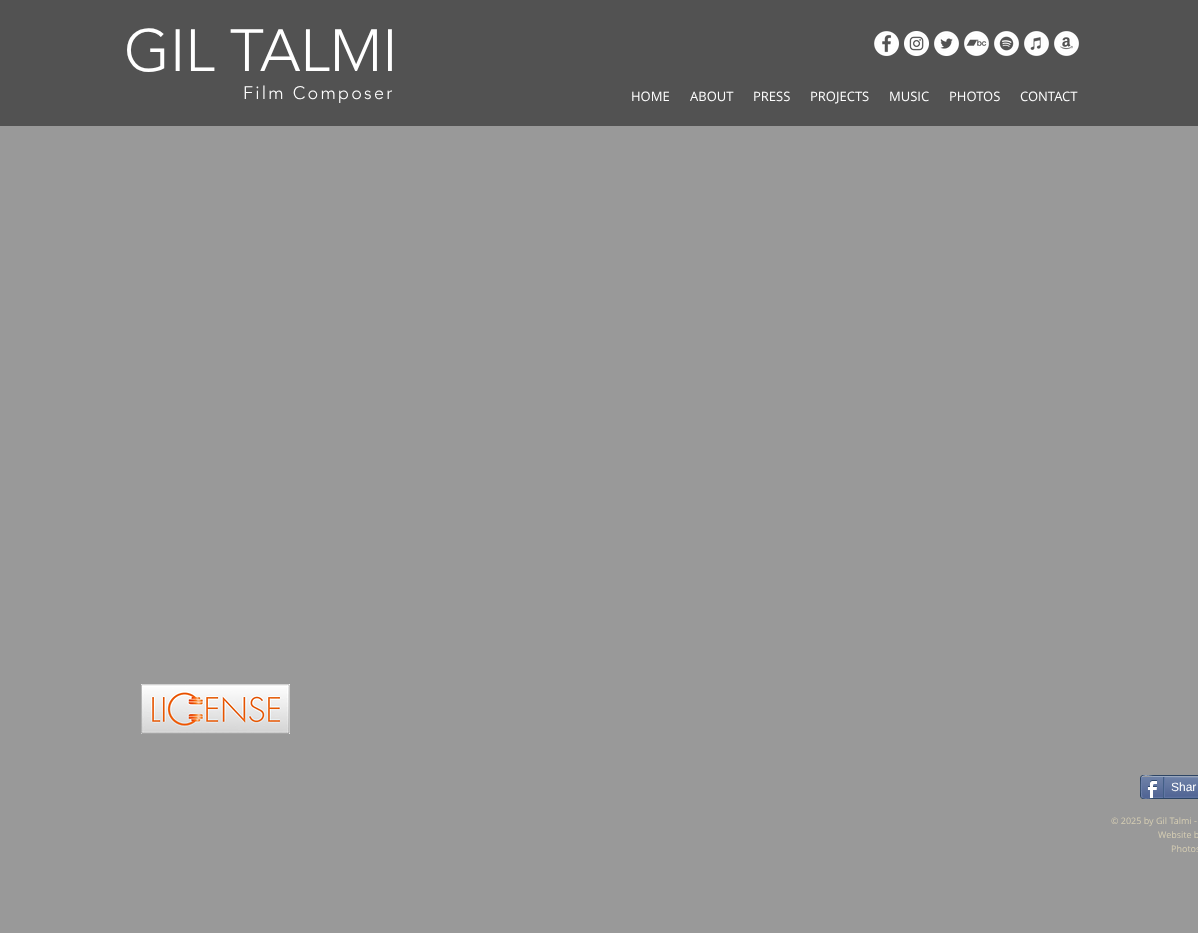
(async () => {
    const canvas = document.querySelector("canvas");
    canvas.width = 1198;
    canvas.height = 933;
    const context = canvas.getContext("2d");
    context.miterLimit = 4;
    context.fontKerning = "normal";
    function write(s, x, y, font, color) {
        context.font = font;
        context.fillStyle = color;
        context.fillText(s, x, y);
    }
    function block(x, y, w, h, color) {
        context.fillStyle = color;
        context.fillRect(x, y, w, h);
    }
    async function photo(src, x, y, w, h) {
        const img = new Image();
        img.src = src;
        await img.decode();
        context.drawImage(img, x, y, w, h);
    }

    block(0, 0, 1198, 933, "rgb(153, 153, 153)");
    block(0, 0, 1198, 126, "rgb(82, 82, 82)");
    write("GIL TALMI", 124, 71, "300 59px 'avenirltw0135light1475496'", "rgb(255, 255, 255)");
    await photo("media/1.png", 874, 31, 25, 25);
    await photo("media/2.png", 904, 31, 25, 25);
    await photo("media/3.png", 934, 31, 25, 25);
    await photo("media/4.png", 964, 31, 25, 25);
    await photo("media/5.png", 994, 31, 25, 25);
    await photo("media/6.png", 1024, 31, 25, 25);
    await photo("media/7.png", 1054, 31, 25, 25);
    context.letterSpacing = "2.2px";
    write("Film Composer", 243, 99, "300 18px 'avenirltw0135light1475496'", "rgb(255, 255, 255)");
    context.letterSpacing = "0px";
    write("HOME", 631, 101, "13px Open Sans", "rgb(255, 255, 255)");
    write("ABOUT", 690, 101, "13px Open Sans", "rgb(255, 255, 255)");
    write("PRESS", 753, 101, "13px Open Sans", "rgb(255, 255, 255)");
    write("PROJECTS", 810, 101, "13px Open Sans", "rgb(255, 255, 255)");
    write("MUSIC", 889, 101, "13px Open Sans", "rgb(255, 255, 255)");
    write("PHOTOS", 949, 101, "13px Open Sans", "rgb(255, 255, 255)");
    write("CONTACT", 1020, 101, "13px Open Sans", "rgb(255, 255, 255)");
    await photo("media/8.png", 141, 684, 149, 50);
    context.beginPath();
    context.roundRect(1140.5, 775.5, 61, 23, 2.5);
    context.strokeStyle = "rgb(45, 69, 101)";
    context.stroke();
    await photo("media/9.png", 1141, 777, 57, 21);
    context.beginPath();
    context.moveTo(1142, 777);
    context.bezierCurveTo(1145, 774, 1150, 776.5, 1154, 776.5);
    context.lineTo(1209, 777);
    context.strokeStyle = "rgb(154, 171, 198)";
    context.stroke();
    context.beginPath();
    context.moveTo(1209, 797);
    context.lineTo(1154, 797.5);
    context.bezierCurveTo(1150, 797.5, 1145, 800, 1142, 797);
    context.strokeStyle = "rgb(97, 118, 163)";
    context.stroke();
    context.beginPath();
    context.moveTo(1142, 797);
    context.bezierCurveTo(1141, 796.5, 1141, 777.5, 1142, 777);
    context.strokeStyle = "rgb(111, 131, 173)";
    context.stroke();
    await photo("media/10.png", 1147, 780, 10, 18);
    block(1163, 777, 1, 21, "rgb(66, 94, 133)");
    write("Shar", 1171, 791, "12px Liberation Sans", "rgb(255, 255, 255)");
    block(1164, 777, 1, 20, "rgb(97, 118, 163)");
    write("© 2025 by Gil Talmi -", 1111, 824, "9px Open Sans", "rgb(213, 205, 179)");
    write("Website b", 1158, 838, "9px Open Sans", "rgb(213, 205, 179)");
    write("Photos", 1171, 852, "9px Open Sans", "rgb(213, 205, 179)");
})();
